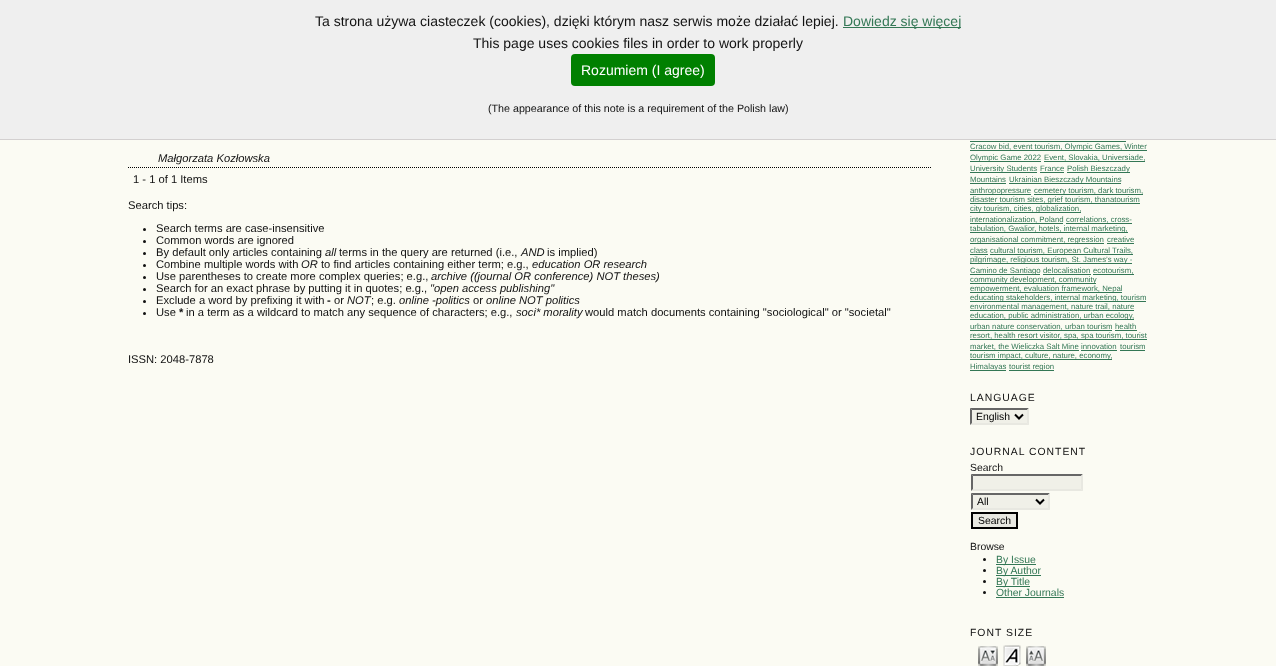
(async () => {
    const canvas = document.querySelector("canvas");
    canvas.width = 1276;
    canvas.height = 666;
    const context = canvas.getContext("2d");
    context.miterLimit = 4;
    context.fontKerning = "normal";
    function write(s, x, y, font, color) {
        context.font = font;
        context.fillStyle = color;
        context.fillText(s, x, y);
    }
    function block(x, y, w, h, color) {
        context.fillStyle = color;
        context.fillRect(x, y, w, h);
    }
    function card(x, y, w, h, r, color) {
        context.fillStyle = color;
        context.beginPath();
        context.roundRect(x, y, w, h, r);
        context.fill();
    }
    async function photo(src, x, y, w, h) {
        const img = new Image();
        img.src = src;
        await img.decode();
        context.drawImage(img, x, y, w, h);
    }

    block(0, 0, 1276, 666, "rgb(251, 251, 243)");
    block(0, 0, 1276, 139, "rgb(239, 239, 239)");
    block(0, 139, 1276, 1, "rgb(211, 208, 208)");
    write("Ta strona używa ciasteczek (cookies), dzięki którym nasz serwis może działać lepiej.", 315, 26, "14px Liberation Sans", "rgb(17, 17, 17)");
    block(843, 27, 118, 1, "rgb(51, 119, 85)");
    write("Dowiedz się więcej", 843, 26, "14px Liberation Sans", "rgb(51, 119, 85)");
    write("This page uses cookies files in order to work properly", 473, 48, "14px Liberation Sans", "rgb(17, 17, 17)");
    card(571, 54, 144, 32, 4, "rgb(0, 128, 0)");
    write("Rozumiem (I agree)", 581, 75, "14px Liberation Sans", "rgb(255, 255, 255)");
    write("(The appearance of this note is a requirement of the Polish law)", 488, 112, "10.7px Liberation Sans", "rgb(17, 17, 17)");
    write("Małgorzata Kozłowska", 158, 162, "italic 11.2px Liberation Sans", "rgb(17, 17, 17)");
    context.beginPath();
    context.moveTo(128, 167.5);
    context.lineTo(931, 167.5);
    context.strokeStyle = "rgb(0, 0, 0)";
    context.setLineDash([1, 1]);
    context.stroke();
    write("1 - 1 of 1 Items", 133, 183, "11.2px Liberation Sans", "rgb(17, 17, 17)");
    write("Search tips:", 128, 209, "11.2px Liberation Sans", "rgb(17, 17, 17)");
    context.beginPath();
    context.arc(144.5, 229.5, 1.5, 0, Math.PI * 2);
    context.fill();
    write("Search terms are case-insensitive", 156, 232, "11.2px Liberation Sans", "rgb(17, 17, 17)");
    context.beginPath();
    context.arc(144.5, 241.5, 1.5, 0, Math.PI * 2);
    context.fill();
    write("Common words are ignored", 156, 244, "11.2px Liberation Sans", "rgb(17, 17, 17)");
    context.beginPath();
    context.arc(144.5, 253.5, 1.5, 0, Math.PI * 2);
    context.fill();
    write("By default only articles containing", 156, 256, "11.2px Liberation Sans", "rgb(17, 17, 17)");
    write("all", 325, 256, "italic 11.2px Liberation Sans", "rgb(17, 17, 17)");
    write("terms in the query are returned (i.e.,", 339, 256, "11.2px Liberation Sans", "rgb(17, 17, 17)");
    write("AND", 521, 256, "italic 11.2px Liberation Sans", "rgb(17, 17, 17)");
    write("is implied)", 547, 256, "11.2px Liberation Sans", "rgb(17, 17, 17)");
    context.beginPath();
    context.arc(144.5, 265.5, 1.5, 0, Math.PI * 2);
    context.fill();
    write("Combine multiple words with", 156, 268, "11.2px Liberation Sans", "rgb(17, 17, 17)");
    write("OR", 301, 268, "italic 11.2px Liberation Sans", "rgb(17, 17, 17)");
    write("to find articles containing either term; e.g.,", 321, 268, "11.2px Liberation Sans", "rgb(17, 17, 17)");
    write("education OR research", 532, 268, "italic 11.2px Liberation Sans", "rgb(17, 17, 17)");
    context.beginPath();
    context.arc(144.5, 277.5, 1.5, 0, Math.PI * 2);
    context.fill();
    write("Use parentheses to create more complex queries; e.g.,", 156, 280, "11.2px Liberation Sans", "rgb(17, 17, 17)");
    write("archive ((journal OR conference) NOT theses)", 431, 280, "italic 11.2px Liberation Sans", "rgb(17, 17, 17)");
    context.beginPath();
    context.arc(144.5, 289.5, 1.5, 0, Math.PI * 2);
    context.fill();
    write("Search for an exact phrase by putting it in quotes; e.g.,", 156, 292, "11.2px Liberation Sans", "rgb(17, 17, 17)");
    write("\"open access publishing\"", 430, 292, "italic 11.2px Liberation Sans", "rgb(17, 17, 17)");
    context.beginPath();
    context.arc(144.5, 301.5, 1.5, 0, Math.PI * 2);
    context.fill();
    write("Exclude a word by prefixing it with", 156, 304, "11.2px Liberation Sans", "rgb(17, 17, 17)");
    write("-", 327, 304, "bold 11.2px Liberation Sans", "rgb(17, 17, 17)");
    write("or", 334, 304, "11.2px Liberation Sans", "rgb(17, 17, 17)");
    write("NOT", 347, 304, "italic 11.2px Liberation Sans", "rgb(17, 17, 17)");
    write("; e.g.", 371, 304, "11.2px Liberation Sans", "rgb(17, 17, 17)");
    write("online -politics", 399, 304, "italic 11.2px Liberation Sans", "rgb(17, 17, 17)");
    write("or", 473, 304, "11.2px Liberation Sans", "rgb(17, 17, 17)");
    write("online NOT politics", 486, 304, "italic 11.2px Liberation Sans", "rgb(17, 17, 17)");
    write("Use", 156, 316, "11.2px Liberation Sans", "rgb(17, 17, 17)");
    write("*", 179, 316, "bold 11.2px Liberation Sans", "rgb(17, 17, 17)");
    write("in a term as a wildcard to match any sequence of characters; e.g.,", 186, 316, "11.2px Liberation Sans", "rgb(17, 17, 17)");
    write("soci* morality", 516, 316, "italic 11.2px Liberation Sans", "rgb(17, 17, 17)");
    write("would match documents containing \"sociological\" or \"societal\"", 585, 316, "11.2px Liberation Sans", "rgb(17, 17, 17)");
    context.beginPath();
    context.arc(144.5, 313.5, 1.5, 0, Math.PI * 2);
    context.fill();
    write("ISSN: 2048-7878", 128, 363, "11.2px Liberation Sans", "rgb(17, 17, 17)");
    block(970, 141, 156, 1, "rgb(51, 119, 85)");
    block(970, 150, 177, 1, "rgb(51, 119, 85)");
    write("Cracow bid, event tourism, Olympic Games, Winter", 970, 149, "7.8px Liberation Sans", "rgb(51, 119, 85)");
    block(970, 161, 71, 1, "rgb(51, 119, 85)");
    write("Olympic Game 2022", 970, 160, "7.8px Liberation Sans", "rgb(51, 119, 85)");
    write("Event, Slovakia, Universiade,", 1044, 160, "7.8px Liberation Sans", "rgb(51, 119, 85)");
    block(1044, 161, 101, 1, "rgb(51, 119, 85)");
    block(970, 172, 67, 1, "rgb(51, 119, 85)");
    write("University Students", 970, 171, "7.8px Liberation Sans", "rgb(51, 119, 85)");
    write("France", 1040, 171, "7.8px Liberation Sans", "rgb(51, 119, 85)");
    block(1040, 172, 24, 1, "rgb(51, 119, 85)");
    block(1067, 172, 63, 1, "rgb(51, 119, 85)");
    write("Polish Bieszczady", 1067, 171, "7.8px Liberation Sans", "rgb(51, 119, 85)");
    write("Mountains", 970, 182, "7.8px Liberation Sans", "rgb(51, 119, 85)");
    block(970, 183, 36, 1, "rgb(51, 119, 85)");
    block(1009, 183, 112, 1, "rgb(51, 119, 85)");
    write("Ukrainian Bieszczady Mountains", 1009, 182, "7.8px Liberation Sans", "rgb(51, 119, 85)");
    block(970, 194, 61, 1, "rgb(51, 119, 85)");
    write("anthropopressure", 970, 193, "7.8px Liberation Sans", "rgb(51, 119, 85)");
    block(1034, 194, 109, 1, "rgb(51, 119, 85)");
    write("cemetery tourism, dark tourism,", 1034, 193, "7.8px Liberation Sans", "rgb(51, 119, 85)");
    block(970, 203, 170, 1, "rgb(51, 119, 85)");
    write("disaster tourism sites, grief tourism, thanatourism", 970, 202, "7.8px Liberation Sans", "rgb(51, 119, 85)");
    block(970, 212, 111, 1, "rgb(51, 119, 85)");
    write("city tourism, cities, globalization,", 970, 211, "7.8px Liberation Sans", "rgb(51, 119, 85)");
    write("internationalization, Poland", 970, 222, "7.8px Liberation Sans", "rgb(51, 119, 85)");
    block(970, 223, 93, 1, "rgb(51, 119, 85)");
    write("correlations, cross-", 1066, 222, "7.8px Liberation Sans", "rgb(51, 119, 85)");
    block(1066, 223, 66, 1, "rgb(51, 119, 85)");
    block(970, 232, 158, 1, "rgb(51, 119, 85)");
    write("tabulation, Gwalior, hotels, internal marketing,", 970, 231, "7.8px Liberation Sans", "rgb(51, 119, 85)");
    block(970, 243, 134, 1, "rgb(51, 119, 85)");
    write("organisational commitment, regression", 970, 242, "7.8px Liberation Sans", "rgb(51, 119, 85)");
    write("creative", 1107, 242, "7.8px Liberation Sans", "rgb(51, 119, 85)");
    block(1107, 243, 27, 1, "rgb(51, 119, 85)");
    write("class", 970, 253, "7.8px Liberation Sans", "rgb(51, 119, 85)");
    block(970, 254, 18, 1, "rgb(51, 119, 85)");
    block(990, 254, 143, 1, "rgb(51, 119, 85)");
    write("cultural tourism, European Cultural Trails,", 990, 253, "7.8px Liberation Sans", "rgb(51, 119, 85)");
    block(970, 263, 162, 1, "rgb(51, 119, 85)");
    write("pilgrimage, religious tourism, St. James’s way -", 970, 262, "7.8px Liberation Sans", "rgb(51, 119, 85)");
    block(970, 274, 70, 1, "rgb(51, 119, 85)");
    write("Camino de Santiago", 970, 273, "7.8px Liberation Sans", "rgb(51, 119, 85)");
    write("delocalisation", 1043, 273, "7.8px Liberation Sans", "rgb(51, 119, 85)");
    block(1043, 274, 48, 1, "rgb(51, 119, 85)");
    write("ecotourism,", 1093, 273, "7.8px Liberation Sans", "rgb(51, 119, 85)");
    block(1093, 274, 41, 1, "rgb(51, 119, 85)");
    block(970, 283, 126, 1, "rgb(51, 119, 85)");
    write("community development, community", 970, 282, "7.8px Liberation Sans", "rgb(51, 119, 85)");
    block(970, 292, 152, 1, "rgb(51, 119, 85)");
    write("empowerment, evaluation framework, Nepal", 970, 291, "7.8px Liberation Sans", "rgb(51, 119, 85)");
    block(970, 301, 176, 1, "rgb(51, 119, 85)");
    write("educating stakeholders, internal marketing, tourism", 970, 300, "7.8px Liberation Sans", "rgb(51, 119, 85)");
    block(970, 310, 164, 1, "rgb(51, 119, 85)");
    write("environmental management, nature trail, nature", 970, 309, "7.8px Liberation Sans", "rgb(51, 119, 85)");
    block(970, 319, 164, 1, "rgb(51, 119, 85)");
    write("education, public administration, urban ecology,", 970, 318, "7.8px Liberation Sans", "rgb(51, 119, 85)");
    write("urban nature conservation, urban tourism", 970, 329, "7.8px Liberation Sans", "rgb(51, 119, 85)");
    block(970, 330, 142, 1, "rgb(51, 119, 85)");
    write("health", 1115, 329, "7.8px Liberation Sans", "rgb(51, 119, 85)");
    block(1115, 330, 22, 1, "rgb(51, 119, 85)");
    block(970, 339, 177, 1, "rgb(51, 119, 85)");
    write("resort, health resort visitor, spa, spa tourism, tourist", 970, 338, "7.8px Liberation Sans", "rgb(51, 119, 85)");
    write("market, the Wieliczka Salt Mine", 970, 349, "7.8px Liberation Sans", "rgb(51, 119, 85)");
    block(970, 350, 109, 1, "rgb(51, 119, 85)");
    write("innovation", 1081, 349, "7.8px Liberation Sans", "rgb(51, 119, 85)");
    block(1081, 350, 36, 1, "rgb(51, 119, 85)");
    write("tourism", 1120, 349, "7.8px Liberation Sans", "rgb(51, 119, 85)");
    block(1120, 350, 25, 1, "rgb(51, 119, 85)");
    block(970, 359, 142, 1, "rgb(51, 119, 85)");
    write("tourism impact, culture, nature, economy,", 970, 358, "7.8px Liberation Sans", "rgb(51, 119, 85)");
    block(970, 370, 36, 1, "rgb(51, 119, 85)");
    write("Himalayas", 970, 369, "7.8px Liberation Sans", "rgb(51, 119, 85)");
    block(1009, 370, 45, 1, "rgb(51, 119, 85)");
    write("tourist region", 1009, 369, "7.8px Liberation Sans", "rgb(51, 119, 85)");
    context.letterSpacing = "1px";
    write("LANGUAGE", 970, 401, "10.4px Liberation Sans", "rgb(17, 17, 17)");
    block(970, 408, 59, 17, "rgb(240, 240, 232)");
    context.fillStyle = "rgb(102, 102, 102)";
    context.beginPath();
    context.moveTo(970, 408);
    context.lineTo(1029, 408);
    context.lineTo(1027, 410);
    context.lineTo(972, 410);
    context.closePath();
    context.fill();
    context.fillStyle = "rgb(232, 232, 225)";
    context.beginPath();
    context.moveTo(1029, 408);
    context.lineTo(1029, 425);
    context.lineTo(1027, 423);
    context.lineTo(1027, 410);
    context.closePath();
    context.fill();
    context.beginPath();
    context.moveTo(1029, 425);
    context.lineTo(970, 425);
    context.lineTo(972, 423);
    context.lineTo(1027, 423);
    context.closePath();
    context.fill();
    context.fillStyle = "rgb(102, 102, 102)";
    context.beginPath();
    context.moveTo(970, 425);
    context.lineTo(970, 408);
    context.lineTo(972, 410);
    context.lineTo(972, 423);
    context.closePath();
    context.fill();
    context.beginPath();
    context.moveTo(1015, 414.5);
    context.lineTo(1019, 418.5);
    context.lineTo(1023, 414.5);
    context.lineWidth = 2;
    context.setLineDash([]);
    context.stroke();
    context.letterSpacing = "0px";
    write("English", 976, 420, "10.4px Liberation Sans", "rgb(0, 0, 0)");
    context.letterSpacing = "1px";
    write("JOURNAL CONTENT", 970, 455, "10.4px Liberation Sans", "rgb(17, 17, 17)");
    context.letterSpacing = "0px";
    write("Search", 970, 471, "10.4px Liberation Sans", "rgb(17, 17, 17)");
    block(971, 474, 112, 17, "rgb(240, 240, 232)");
    context.fillStyle = "rgb(102, 102, 102)";
    context.beginPath();
    context.moveTo(971, 474);
    context.lineTo(1083, 474);
    context.lineTo(1081, 476);
    context.lineTo(973, 476);
    context.closePath();
    context.fill();
    context.fillStyle = "rgb(232, 232, 225)";
    context.beginPath();
    context.moveTo(1083, 474);
    context.lineTo(1083, 491);
    context.lineTo(1081, 489);
    context.lineTo(1081, 476);
    context.closePath();
    context.fill();
    context.beginPath();
    context.moveTo(1083, 491);
    context.lineTo(971, 491);
    context.lineTo(973, 489);
    context.lineTo(1081, 489);
    context.closePath();
    context.fill();
    context.fillStyle = "rgb(102, 102, 102)";
    context.beginPath();
    context.moveTo(971, 491);
    context.lineTo(971, 474);
    context.lineTo(973, 476);
    context.lineTo(973, 489);
    context.closePath();
    context.fill();
    block(971, 493, 79, 17, "rgb(240, 240, 232)");
    context.fillStyle = "rgb(102, 102, 102)";
    context.beginPath();
    context.moveTo(971, 493);
    context.lineTo(1050, 493);
    context.lineTo(1048, 495);
    context.lineTo(973, 495);
    context.closePath();
    context.fill();
    context.fillStyle = "rgb(232, 232, 225)";
    context.beginPath();
    context.moveTo(1050, 493);
    context.lineTo(1050, 510);
    context.lineTo(1048, 508);
    context.lineTo(1048, 495);
    context.closePath();
    context.fill();
    context.beginPath();
    context.moveTo(1050, 510);
    context.lineTo(971, 510);
    context.lineTo(973, 508);
    context.lineTo(1048, 508);
    context.closePath();
    context.fill();
    context.fillStyle = "rgb(102, 102, 102)";
    context.beginPath();
    context.moveTo(971, 510);
    context.lineTo(971, 493);
    context.lineTo(973, 495);
    context.lineTo(973, 508);
    context.closePath();
    context.fill();
    context.beginPath();
    context.moveTo(1036, 499.5);
    context.lineTo(1040, 503.5);
    context.lineTo(1044, 499.5);
    context.stroke();
    write("All", 977, 505, "10.4px Liberation Sans", "rgb(0, 0, 0)");
    context.fillStyle = "rgb(232, 232, 225)";
    context.beginPath();
    context.rect(972, 513, 45, 15);
    context.fill();
    context.stroke();
    write("Search", 978, 524, "10.4px Liberation Sans", "rgb(0, 0, 0)");
    write("Browse", 970, 550, "10.4px Liberation Sans", "rgb(17, 17, 17)");
    context.beginPath();
    context.arc(984.5, 559.5, 1.5, 0, Math.PI * 2);
    context.fill();
    block(996, 564, 40, 1, "rgb(51, 119, 85)");
    write("By Issue", 996, 563, "10.4px Liberation Sans", "rgb(51, 119, 85)");
    context.fillStyle = "rgb(17, 17, 17)";
    context.beginPath();
    context.arc(984.5, 570.5, 1.5, 0, Math.PI * 2);
    context.fill();
    block(996, 575, 45, 1, "rgb(51, 119, 85)");
    write("By Author", 996, 574, "10.4px Liberation Sans", "rgb(51, 119, 85)");
    context.fillStyle = "rgb(17, 17, 17)";
    context.beginPath();
    context.arc(984.5, 581.5, 1.5, 0, Math.PI * 2);
    context.fill();
    block(996, 586, 34, 1, "rgb(51, 119, 85)");
    write("By Title", 996, 585, "10.4px Liberation Sans", "rgb(51, 119, 85)");
    context.fillStyle = "rgb(17, 17, 17)";
    context.beginPath();
    context.arc(984.5, 592.5, 1.5, 0, Math.PI * 2);
    context.fill();
    write("Other Journals", 996, 596, "10.4px Liberation Sans", "rgb(51, 119, 85)");
    block(996, 597, 68, 1, "rgb(51, 119, 85)");
    context.letterSpacing = "1px";
    write("FONT SIZE", 970, 636, "10.4px Liberation Sans", "rgb(17, 17, 17)");
    await photo("media/1.png", 978, 646, 20, 20);
    await photo("media/2.png", 1003, 645, 18, 21);
    await photo("media/3.png", 1026, 646, 20, 20);
})();
